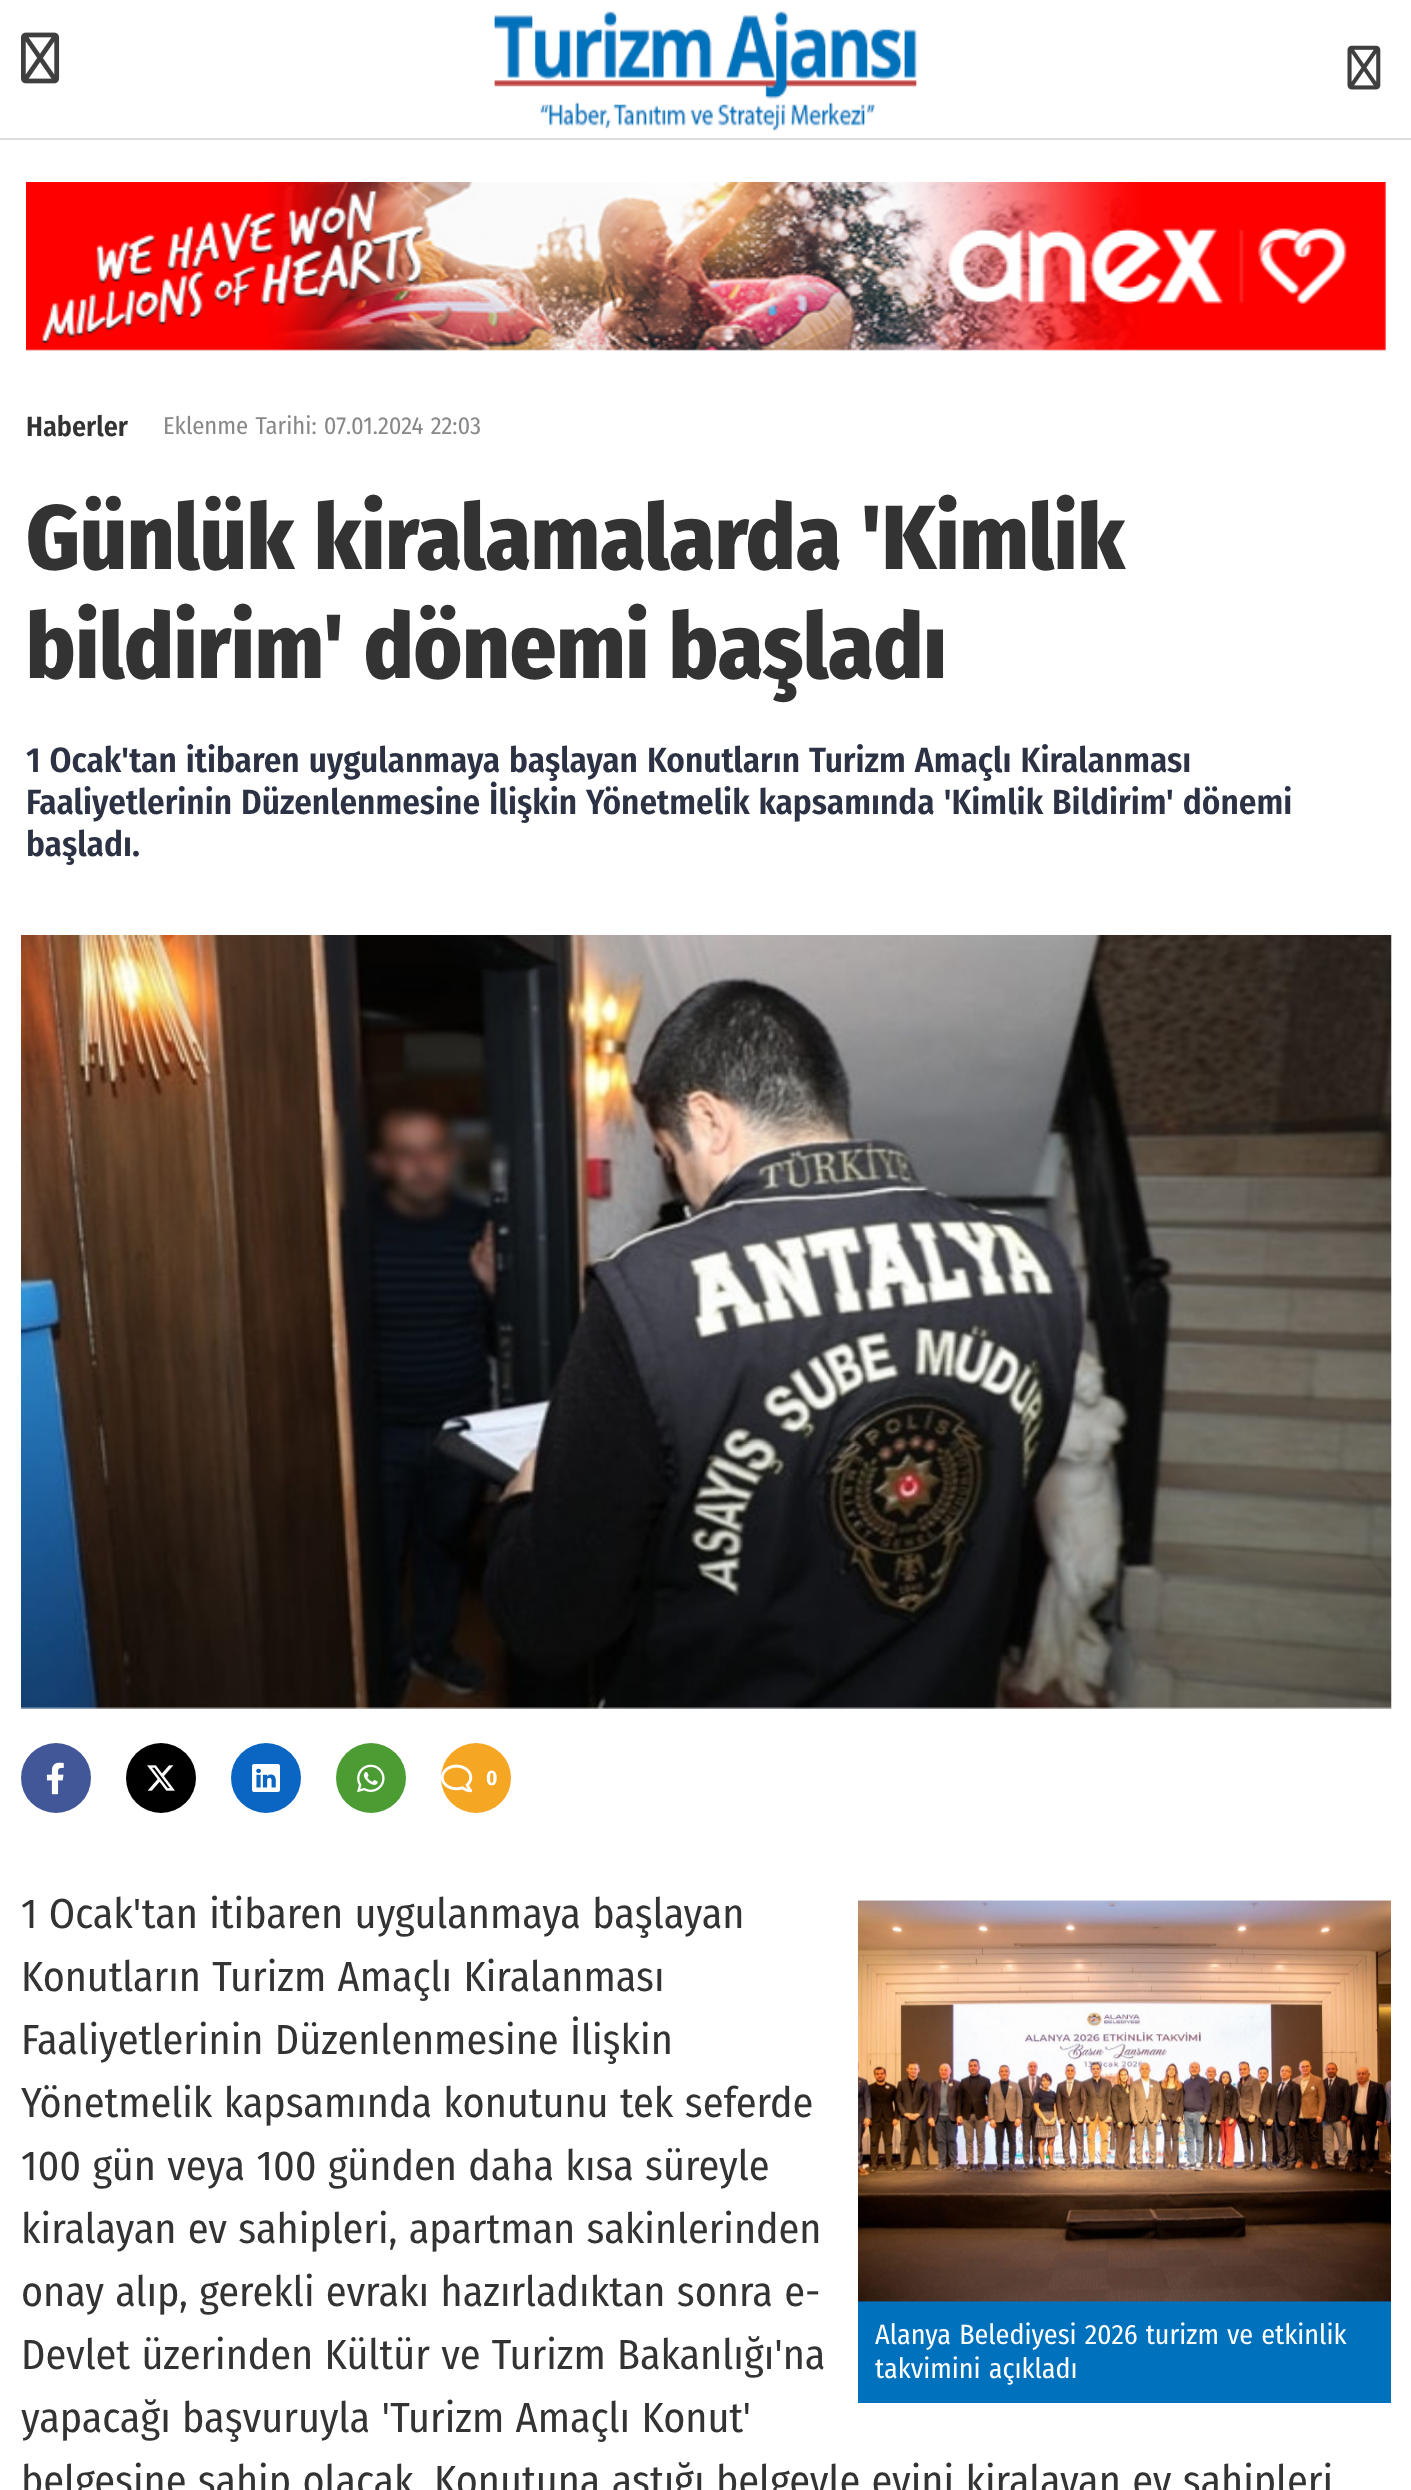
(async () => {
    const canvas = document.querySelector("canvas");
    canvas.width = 1411;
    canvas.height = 2490;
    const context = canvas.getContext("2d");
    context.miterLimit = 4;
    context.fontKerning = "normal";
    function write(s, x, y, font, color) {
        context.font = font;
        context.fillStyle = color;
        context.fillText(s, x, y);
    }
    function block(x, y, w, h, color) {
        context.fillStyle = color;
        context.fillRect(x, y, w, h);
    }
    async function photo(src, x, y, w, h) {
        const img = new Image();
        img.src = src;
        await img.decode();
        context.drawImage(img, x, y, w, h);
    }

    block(0, 0, 1411, 2490, "rgb(255, 255, 255)");
    block(0, 138, 1411, 2, "rgb(221, 221, 221)");
    await photo("media/1.png", 21, 32, 39, 52);
    await photo("media/2.png", 494, 10, 423, 121);
    await photo("media/3.png", 1347, 45, 34, 45);
    await photo("media/4.png", 26, 182, 1360, 169);
    write("Haberler", 26, 436, "600 28px Fira Sans Condensed", "rgb(51, 51, 51)");
    context.wordSpacing = "1.5px";
    write("Eklenme Tarihi: 07.01.2024 22:03", 163, 434, "24.5px Fira Sans Condensed", "rgb(136, 136, 136)");
    write("Günlük kiralamalarda 'Kimlik", 26, 569, "800 91px Fira Sans Condensed", "rgb(51, 51, 51)");
    write("bildirim' dönemi başladı", 26, 678, "800 91px Fira Sans Condensed", "rgb(51, 51, 51)");
    write("1 Ocak'tan itibaren uygulanmaya başlayan Konutların Turizm Amaçlı Kiralanması", 26, 772, "600 35px Fira Sans Condensed", "rgb(44, 50, 67)");
    write("Faaliyetlerinin Düzenlenmesine İlişkin Yönetmelik kapsamında 'Kimlik Bildirim' dönemi", 26, 814, "600 35px Fira Sans Condensed", "rgb(44, 50, 67)");
    context.wordSpacing = "0px";
    write("başladı.", 26, 856, "600 35px Fira Sans Condensed", "rgb(44, 50, 67)");
    await photo("media/5.png", 21, 935, 1371, 774);
    context.fillStyle = "rgb(65, 87, 152)";
    context.beginPath();
    context.arc(56, 1778, 35, 0, Math.PI * 2);
    context.fill();
    await photo("media/6.png", 46, 1762, 18, 33);
    context.fillStyle = "rgb(0, 0, 0)";
    context.beginPath();
    context.arc(161, 1778, 35, 0, Math.PI * 2);
    context.fill();
    await photo("media/7.png", 147, 1765, 28, 26);
    context.fillStyle = "rgb(10, 102, 194)";
    context.beginPath();
    context.arc(266, 1778, 35, 0, Math.PI * 2);
    context.fill();
    await photo("media/8.png", 252, 1764, 28, 28);
    context.fillStyle = "rgb(75, 156, 50)";
    context.beginPath();
    context.arc(371, 1778, 35, 0, Math.PI * 2);
    context.fill();
    await photo("media/9.png", 357, 1764, 28, 29);
    context.fillStyle = "rgb(245, 166, 35)";
    context.beginPath();
    context.arc(476, 1778, 35, 0, Math.PI * 2);
    context.fill();
    await photo("media/10.png", 441, 1764, 32, 29);
    write("0", 486, 1785, "bold 21px Fira Sans Condensed", "rgb(255, 255, 255)");
    context.wordSpacing = "1.5px";
    write("1 Ocak'tan itibaren uygulanmaya başlayan", 21, 1928, "42px Fira Sans Condensed", "rgb(51, 51, 51)");
    write("Konutların Turizm Amaçlı Kiralanması", 21, 1991, "42px Fira Sans Condensed", "rgb(51, 51, 51)");
    write("Faaliyetlerinin Düzenlenmesine İlişkin", 21, 2054, "42px Fira Sans Condensed", "rgb(51, 51, 51)");
    write("Yönetmelik kapsamında konutunu tek seferde", 21, 2117, "42px Fira Sans Condensed", "rgb(51, 51, 51)");
    write("100 gün veya 100 günden daha kısa süreyle", 21, 2180, "42px Fira Sans Condensed", "rgb(51, 51, 51)");
    write("kiralayan ev sahipleri, apartman sakinlerinden", 21, 2243, "42px Fira Sans Condensed", "rgb(51, 51, 51)");
    write("onay alıp, gerekli evrakı hazırladıktan sonra e-", 21, 2306, "42px Fira Sans Condensed", "rgb(51, 51, 51)");
    write("Devlet üzerinden Kültür ve Turizm Bakanlığı'na", 21, 2369, "42px Fira Sans Condensed", "rgb(51, 51, 51)");
    write("yapacağı başvuruyla 'Turizm Amaçlı Konut'", 21, 2432, "42px Fira Sans Condensed", "rgb(51, 51, 51)");
    write("belgesine sahip olacak. Konutuna astığı belgeyle evini kiralayan ev sahipleri", 21, 2495, "42px Fira Sans Condensed", "rgb(51, 51, 51)");
    block(858, 2300, 533, 103, "rgb(0, 113, 188)");
    await photo("media/11.png", 858, 1900, 533, 402);
    write("Alanya Belediyesi 2026 turizm ve etkinlik", 875, 2344, "28px Fira Sans Condensed", "rgb(255, 255, 255)");
    write("takvimini açıkladı", 875, 2378, "28px Fira Sans Condensed", "rgb(255, 255, 255)");
})();
